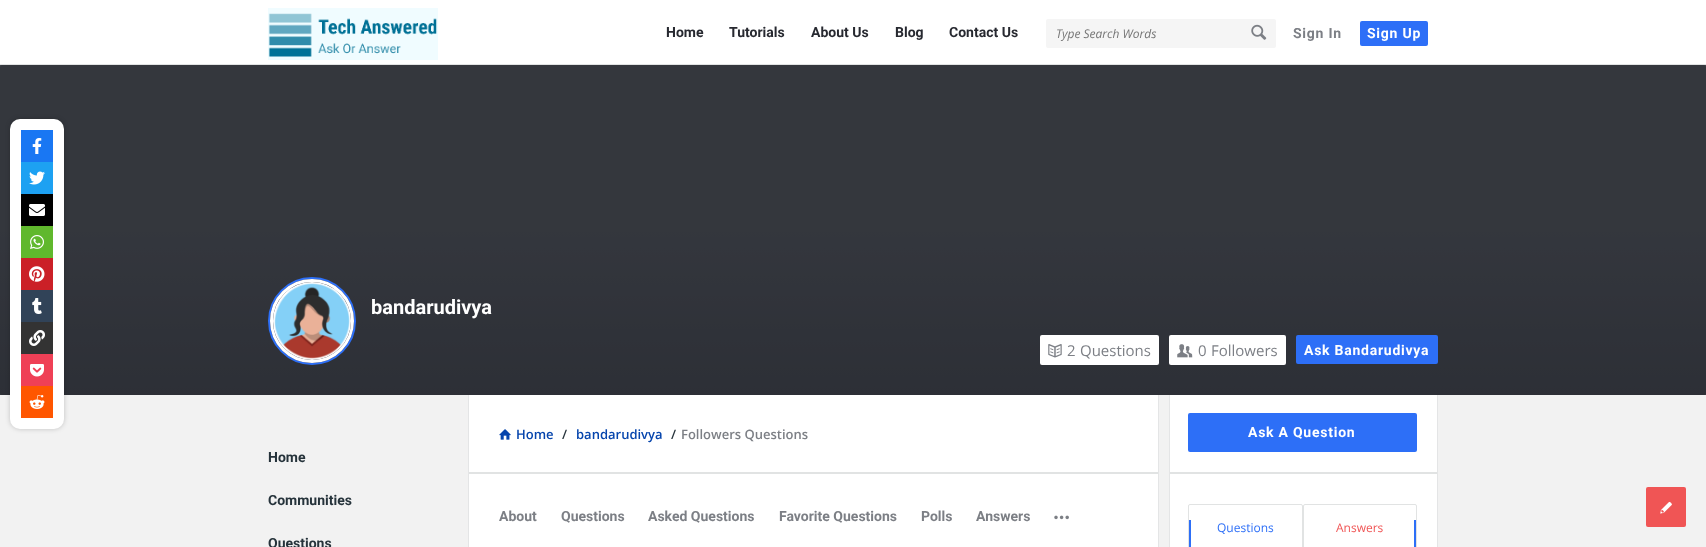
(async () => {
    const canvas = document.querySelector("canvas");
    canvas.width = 1706;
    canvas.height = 547;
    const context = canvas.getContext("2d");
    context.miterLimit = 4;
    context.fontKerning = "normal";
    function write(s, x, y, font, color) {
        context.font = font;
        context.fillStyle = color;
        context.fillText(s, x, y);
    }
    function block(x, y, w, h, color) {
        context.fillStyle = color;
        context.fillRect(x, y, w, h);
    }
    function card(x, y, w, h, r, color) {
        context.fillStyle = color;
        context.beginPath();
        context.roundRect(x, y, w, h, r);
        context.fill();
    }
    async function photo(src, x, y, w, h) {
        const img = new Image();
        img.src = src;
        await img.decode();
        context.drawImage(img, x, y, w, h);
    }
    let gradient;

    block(0, 0, 1706, 547, "rgb(242, 242, 242)");
    gradient = context.createLinearGradient(0, 395, 0, 65);
    gradient.addColorStop(0, "rgb(55, 57, 64)");
    gradient.addColorStop(0.5, "rgb(73, 75, 82)");
    context.fillStyle = gradient;
    context.fillRect(0, 65, 1706, 330);
    card(0, 65, 1706, 330, 2, "rgba(39, 41, 48, 0.6)");
    context.fillStyle = "rgba(0, 0, 0, 0.2)";
    context.filter = "blur(2.5px)";
    context.beginPath();
    context.roundRect(10, 119, 54, 310, 10);
    context.fill();
    context.filter = "none";
    card(10, 119, 54, 310, 10, "rgb(255, 255, 255)");
    block(21, 130, 32, 32, "rgb(25, 119, 243)");
    await photo("media/1.png", 32, 138, 10, 16);
    block(21, 162, 32, 32, "rgb(29, 161, 242)");
    await photo("media/2.png", 29, 171, 16, 14);
    block(21, 194, 32, 32, "rgb(0, 0, 0)");
    await photo("media/3.png", 29, 204, 16, 12);
    block(21, 226, 32, 32, "rgb(96, 184, 45)");
    await photo("media/4.png", 30, 235, 14, 14);
    block(21, 258, 32, 32, "rgb(203, 32, 39)");
    await photo("media/5.png", 29, 266, 16, 16);
    block(21, 290, 32, 32, "rgb(49, 67, 88)");
    await photo("media/6.png", 32, 298, 10, 16);
    block(21, 322, 32, 32, "rgb(51, 51, 51)");
    await photo("media/7.png", 29, 330, 16, 16);
    block(21, 354, 32, 32, "rgb(239, 64, 86)");
    await photo("media/8.png", 30, 364, 14, 13);
    block(21, 386, 32, 32, "rgb(255, 86, 0)");
    await photo("media/9.png", 29, 395, 16, 14);
    block(0, 0, 1706, 64, "rgb(255, 255, 255)");
    block(0, 64, 1706, 1, "rgb(225, 227, 227)");
    await photo("media/10.png", 268, 8, 170, 52);
    write("Home", 666, 37, "bold 14px Roboto", "rgb(39, 41, 48)");
    write("Tutorials", 729, 37, "bold 14px Roboto", "rgb(39, 41, 48)");
    write("About Us", 811, 37, "bold 14px Roboto", "rgb(39, 41, 48)");
    write("Blog", 895, 37, "bold 14px Roboto", "rgb(39, 41, 48)");
    write("Contact Us", 949, 37, "bold 14px Roboto", "rgb(39, 41, 48)");
    card(1046, 19, 230, 29, 2, "rgb(245, 245, 245)");
    write("Type Search Words", 1056, 38, "italic 12px Open Sans", "rgb(117, 117, 117)");
    await photo("media/11.png", 1251, 24, 16, 16);
    context.letterSpacing = "0.75px";
    write("Sign In", 1293, 38, "bold 14px Roboto", "rgb(124, 127, 133)");
    card(1360, 21, 68, 25, 2, "rgb(45, 111, 247)");
    write("Sign Up", 1367, 38, "bold 14px Roboto", "rgb(255, 255, 255)");
    context.beginPath();
    context.arc(312, 321, 43, 0, Math.PI * 2);
    context.strokeStyle = "rgb(45, 111, 247)";
    context.lineWidth = 2;
    context.stroke();
    context.beginPath();
    context.arc(312, 321, 40.5, 0, Math.PI * 2);
    context.strokeStyle = "rgb(255, 255, 255)";
    context.lineWidth = 3;
    context.stroke();
    await photo("media/12.png", 273, 282, 78, 78);
    context.letterSpacing = "0px";
    write("bandarudivya", 371, 314, "bold 20px Roboto", "rgb(255, 255, 255)");
    card(1040, 335, 119, 30, 2, "rgb(255, 255, 255)");
    await photo("media/13.png", 1048, 344, 14, 14);
    write("2", 1067, 356, "15px Open Sans", "rgb(124, 127, 133)");
    write("Questions", 1080, 356, "15px Open Sans", "rgb(124, 127, 133)");
    card(1169, 335, 117, 30, 2, "rgb(255, 255, 255)");
    await photo("media/14.png", 1177, 344, 16, 14);
    write("0", 1198, 356, "15px Open Sans", "rgb(124, 127, 133)");
    write("Followers", 1211, 356, "15px Open Sans", "rgb(124, 127, 133)");
    card(1296, 335, 142, 29, 2, "rgb(45, 111, 247)");
    context.letterSpacing = "0.75px";
    write("Ask Bandarudivya", 1304, 355, "bold 14px Roboto", "rgb(255, 255, 255)");
    context.letterSpacing = "0px";
    write("Home", 268, 462, "bold 14px Roboto", "rgb(38, 51, 59)");
    write("Communities", 268, 505, "bold 14px Roboto", "rgb(38, 51, 59)");
    write("Questions", 268, 548, "bold 14px Roboto", "rgb(38, 51, 59)");
    block(469, 395, 689, 152, "rgb(255, 255, 255)");
    block(1158, 395, 1, 152, "rgb(228, 229, 230)");
    block(468, 395, 1, 152, "rgb(228, 229, 230)");
    block(469, 472, 689, 2, "rgb(225, 227, 227)");
    await photo("media/15.png", 499, 429, 12, 11);
    write("Home", 516, 439, "600 13px Open Sans", "rgb(6, 69, 173)");
    write("/", 562, 439, "600 13px Open Sans", "rgb(38, 51, 59)");
    write("bandarudivya", 576, 439, "600 13px Open Sans", "rgb(6, 69, 173)");
    write("/", 671, 439, "600 13px Open Sans", "rgb(38, 51, 59)");
    write("Followers Questions", 681, 439, "600 13px Open Sans", "rgb(124, 127, 133)");
    write("About", 499, 521, "bold 14px Roboto", "rgb(124, 127, 133)");
    write("Questions", 561, 521, "bold 14px Roboto", "rgb(124, 127, 133)");
    write("Asked Questions", 648, 521, "bold 14px Roboto", "rgb(124, 127, 133)");
    write("Favorite Questions", 779, 521, "bold 14px Roboto", "rgb(124, 127, 133)");
    write("Polls", 921, 521, "bold 14px Roboto", "rgb(124, 127, 133)");
    write("Answers", 976, 521, "bold 14px Roboto", "rgb(124, 127, 133)");
    await photo("media/16.png", 1054, 515, 15, 5);
    block(1170, 395, 267, 152, "rgb(255, 255, 255)");
    block(1437, 395, 1, 152, "rgb(228, 229, 230)");
    block(1169, 395, 1, 152, "rgb(228, 229, 230)");
    block(1170, 472, 267, 2, "rgb(225, 227, 227)");
    card(1188, 413, 229, 39, 2, "rgb(45, 111, 247)");
    context.letterSpacing = "0.75px";
    write("Ask A Question", 1248, 437, "bold 14px Roboto", "rgb(255, 255, 255)");
    context.beginPath();
    context.roundRect(1188.5, 504.5, 114, 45, 1.5);
    context.strokeStyle = "rgb(225, 227, 227)";
    context.lineWidth = 1;
    context.stroke();
    block(1189, 520, 2, 27, "rgb(45, 111, 247)");
    context.letterSpacing = "0px";
    write("Questions", 1217, 532, "12px Open Sans", "rgb(45, 111, 247)");
    context.beginPath();
    context.roundRect(1303.5, 504.5, 113, 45, 1.5);
    context.stroke();
    write("Answers", 1336, 532, "12px Open Sans", "rgb(240, 85, 85)");
    block(1414, 520, 2, 27, "rgb(45, 111, 247)");
    card(1646, 487, 40, 40, 2, "rgb(240, 85, 85)");
    await photo("media/17.png", 1660, 501, 12, 13);
})();
